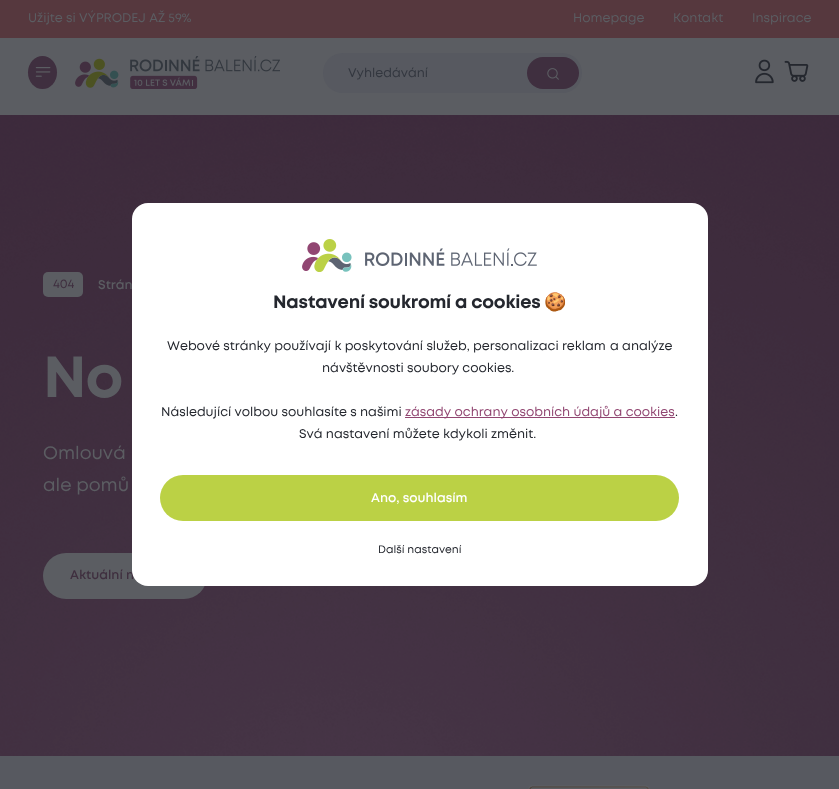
(async () => {
    const canvas = document.querySelector("canvas");
    canvas.width = 839;
    canvas.height = 789;
    const context = canvas.getContext("2d");
    context.miterLimit = 4;
    context.fontKerning = "none";
    function write(s, x, y, font, color) {
        context.font = font;
        context.fillStyle = color;
        context.fillText(s, x, y);
    }
    function block(x, y, w, h, color) {
        context.fillStyle = color;
        context.fillRect(x, y, w, h);
    }
    function card(x, y, w, h, r, color) {
        context.fillStyle = color;
        context.beginPath();
        context.roundRect(x, y, w, h, r);
        context.fill();
    }
    async function photo(src, x, y, w, h) {
        const img = new Image();
        img.src = src;
        await img.decode();
        context.drawImage(img, x, y, w, h);
    }

    block(0, 0, 839, 789, "rgb(91, 93, 98)");
    block(0, 0, 839, 38, "rgb(86, 56, 62)");
    write("Užijte si VÝPRODEJ AŽ 59%", 28, 22, "12.6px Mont", "rgb(91, 93, 98)");
    write("Homepage", 573, 22, "12.6px Mont", "rgb(91, 93, 98)");
    write("Kontakt", 673, 22, "12.6px Mont", "rgb(91, 93, 98)");
    write("Inspirace", 752, 22, "12.6px Mont", "rgb(91, 93, 98)");
    context.fillStyle = "rgb(63, 47, 63)";
    context.beginPath();
    context.ellipse(42.5, 72.5, 14.5, 16.5, 0, 0, Math.PI * 2);
    context.fill();
    await photo("media/1.png", 35, 67, 16, 10);
    await photo("media/2.png", 75, 56, 205, 33);
    card(323, 53, 259, 40, 20, "rgb(87, 89, 96)");
    write("Vyhledávání", 348, 77, "12.6px Mont", "rgb(51, 55, 63)");
    card(527, 57, 52, 32, 16, "rgb(63, 47, 63)");
    await photo("media/3.png", 547, 68, 12, 12);
    await photo("media/4.png", 755, 59, 19, 25);
    await photo("media/5.png", 784, 60, 25, 22);
    await photo("media/6.png", 0, 115, 839, 641);
    card(43, 272, 40, 25, 5, "rgb(91, 93, 98)");
    write("404", 53, 288, "12.6px Mont", "rgb(63, 47, 63)");
    write("Strán", 98, 289, "600 12.6px Mont", "rgb(91, 93, 98)");
    context.letterSpacing = "-1px";
    write("No", 43, 397, "bold 58px Mont", "rgb(91, 93, 98)");
    context.letterSpacing = "0px";
    write("Omlouvá", 43, 459, "18px Mont", "rgb(91, 93, 98)");
    write("ale pomů", 43, 491, "18px Mont", "rgb(91, 93, 98)");
    card(43, 553, 164, 46, 23, "rgb(91, 93, 98)");
    write("Aktuální n", 70, 579, "600 12.6px Mont", "rgb(63, 47, 63)");
    block(0, 756, 839, 33, "rgb(87, 89, 96)");
    await photo("media/7.png", 528, 785, 122, 4);
    card(132, 203, 576, 383, 16, "rgb(255, 255, 255)");
    await photo("media/8.png", 302, 239, 235, 33);
    context.letterSpacing = "-0.25px";
    write("Nastavení soukromí a cookies", 273, 308, "bold 18px Mont", "rgb(36, 39, 46)");
    write("🍪", 544, 308, "bold 18px Noto Color Emoji", "rgb(36, 39, 46)");
    context.letterSpacing = "0px";
    write("Webové stránky používají k poskytování služeb, personalizaci reklam", 167, 350, "12.6px Mont", "rgb(36, 39, 46)");
    write("a analýze", 610, 350, "12.6px Mont", "rgb(36, 39, 46)");
    write("návštěvnosti soubory cookies.", 322, 372, "12.6px Mont", "rgb(36, 39, 46)");
    write("Následující volbou souhlasíte s našimi", 161, 416, "12.6px Mont", "rgb(36, 39, 46)");
    block(405, 417, 270, 1, "rgb(145, 70, 113)");
    write("zásady ochrany osobních údajů a cookies", 405, 416, "12.6px Mont", "rgb(145, 70, 113)");
    write(".", 675, 416, "12.6px Mont", "rgb(36, 39, 46)");
    write("Svá nastavení můžete kdykoli změnit.", 299, 438, "12.6px Mont", "rgb(36, 39, 46)");
    card(160, 475, 519, 46, 23, "rgb(187, 209, 69)");
    write("Ano, souhlasím", 371, 502, "600 12.6px Mont", "rgb(255, 255, 255)");
    write("Další nastavení", 378, 553, "10.75px Mont", "rgb(36, 39, 46)");
})();
